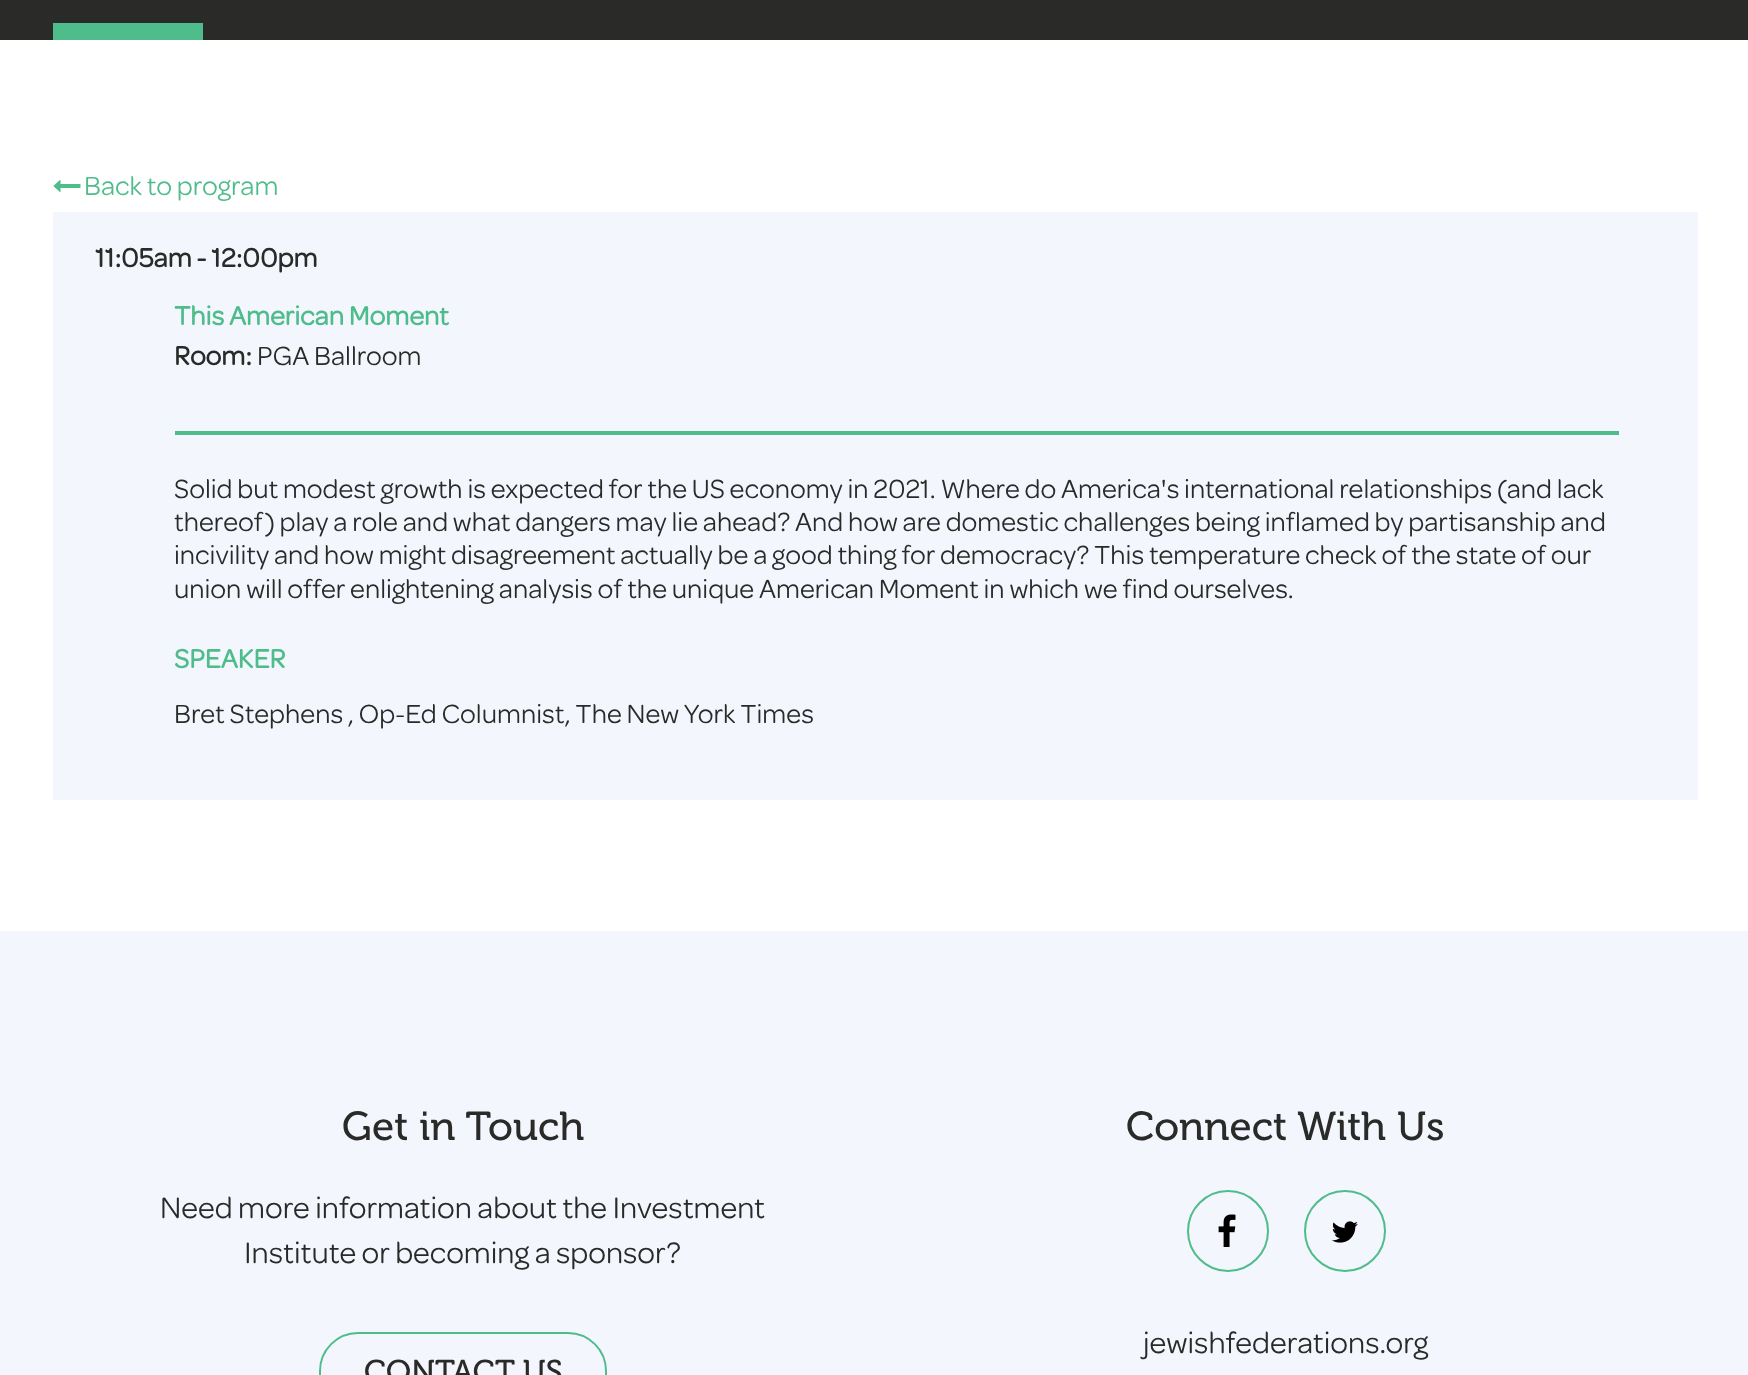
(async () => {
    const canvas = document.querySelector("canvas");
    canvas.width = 1748;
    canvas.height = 1375;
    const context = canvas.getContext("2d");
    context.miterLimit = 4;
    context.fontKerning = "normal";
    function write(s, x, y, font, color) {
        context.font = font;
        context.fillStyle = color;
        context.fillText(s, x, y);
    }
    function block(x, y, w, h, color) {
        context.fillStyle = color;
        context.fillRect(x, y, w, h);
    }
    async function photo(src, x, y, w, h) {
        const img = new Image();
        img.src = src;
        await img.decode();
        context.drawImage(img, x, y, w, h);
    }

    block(0, 0, 1748, 1375, "rgb(255, 255, 255)");
    block(0, 0, 1748, 40, "rgb(42, 42, 41)");
    block(53, 23, 150, 17, "rgb(79, 188, 139)");
    await photo("media/1.png", 53, 180, 28, 12);
    write("Back to program", 84, 195, "28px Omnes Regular", "rgb(79, 188, 139)");
    block(53, 212, 1645, 588, "rgb(243, 247, 253)");
    write("11:05am - 12:00pm", 95, 267, "bold 28px Omnes Regular", "rgb(42, 42, 41)");
    write("This American Moment", 174, 325, "bold 28px Omnes Regular", "rgb(79, 188, 139)");
    write("Room:", 174, 365, "bold 28px Omnes Regular", "rgb(42, 42, 41)");
    write("PGA Ballroom", 257, 365, "28px Omnes Regular", "rgb(42, 42, 41)");
    block(175, 431, 1444, 4, "rgb(79, 188, 139)");
    write("Solid but modest growth is expected for the US economy in 2021. Where do America's international relationships (and lack", 174, 498, "28px Omnes Regular", "rgb(42, 42, 41)");
    write("thereof) play a role and what dangers may lie ahead? And how are domestic challenges being inflamed by partisanship and", 174, 531, "28px Omnes Regular", "rgb(42, 42, 41)");
    write("incivility and how might disagreement actually be a good thing for democracy? This temperature check of the state of our", 174, 564, "28px Omnes Regular", "rgb(42, 42, 41)");
    write("union will offer enlightening analysis of the unique American Moment in which we find ourselves.", 174, 598, "28px Omnes Regular", "rgb(42, 42, 41)");
    write("SPEAKER", 174, 668, "bold 28px Omnes Regular", "rgb(79, 188, 139)");
    write("Bret Stephens , Op-Ed Columnist, The New York Times", 174, 723, "28px Omnes Regular", "rgb(42, 42, 41)");
    block(0, 931, 1748, 444, "rgb(243, 247, 253)");
    write("Get in Touch", 342, 1140, "40.25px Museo", "rgb(42, 42, 41)");
    write("Need more information about the Investment", 160, 1218, "31.5px Omnes Regular", "rgb(42, 42, 41)");
    write("Institute or becoming a sponsor?", 244, 1263, "31.5px Omnes Regular", "rgb(42, 42, 41)");
    context.beginPath();
    context.roundRect(320, 1333, 286, 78, 38);
    context.strokeStyle = "rgb(79, 188, 139)";
    context.lineWidth = 2;
    context.stroke();
    write("CONTACT US", 364, 1382, "31.5px Museo", "rgb(42, 42, 41)");
    write("Connect With Us", 1126, 1140, "40.25px Museo", "rgb(42, 42, 41)");
    context.beginPath();
    context.arc(1228, 1231, 40, 0, Math.PI * 2);
    context.stroke();
    await photo("media/2.png", 1218, 1214, 18, 33);
    context.beginPath();
    context.arc(1345, 1231, 40, 0, Math.PI * 2);
    context.stroke();
    await photo("media/3.png", 1332, 1221, 26, 22);
    write("jewishfederations.org", 1143, 1353, "31.5px Omnes Regular", "rgb(42, 42, 41)");
})();
